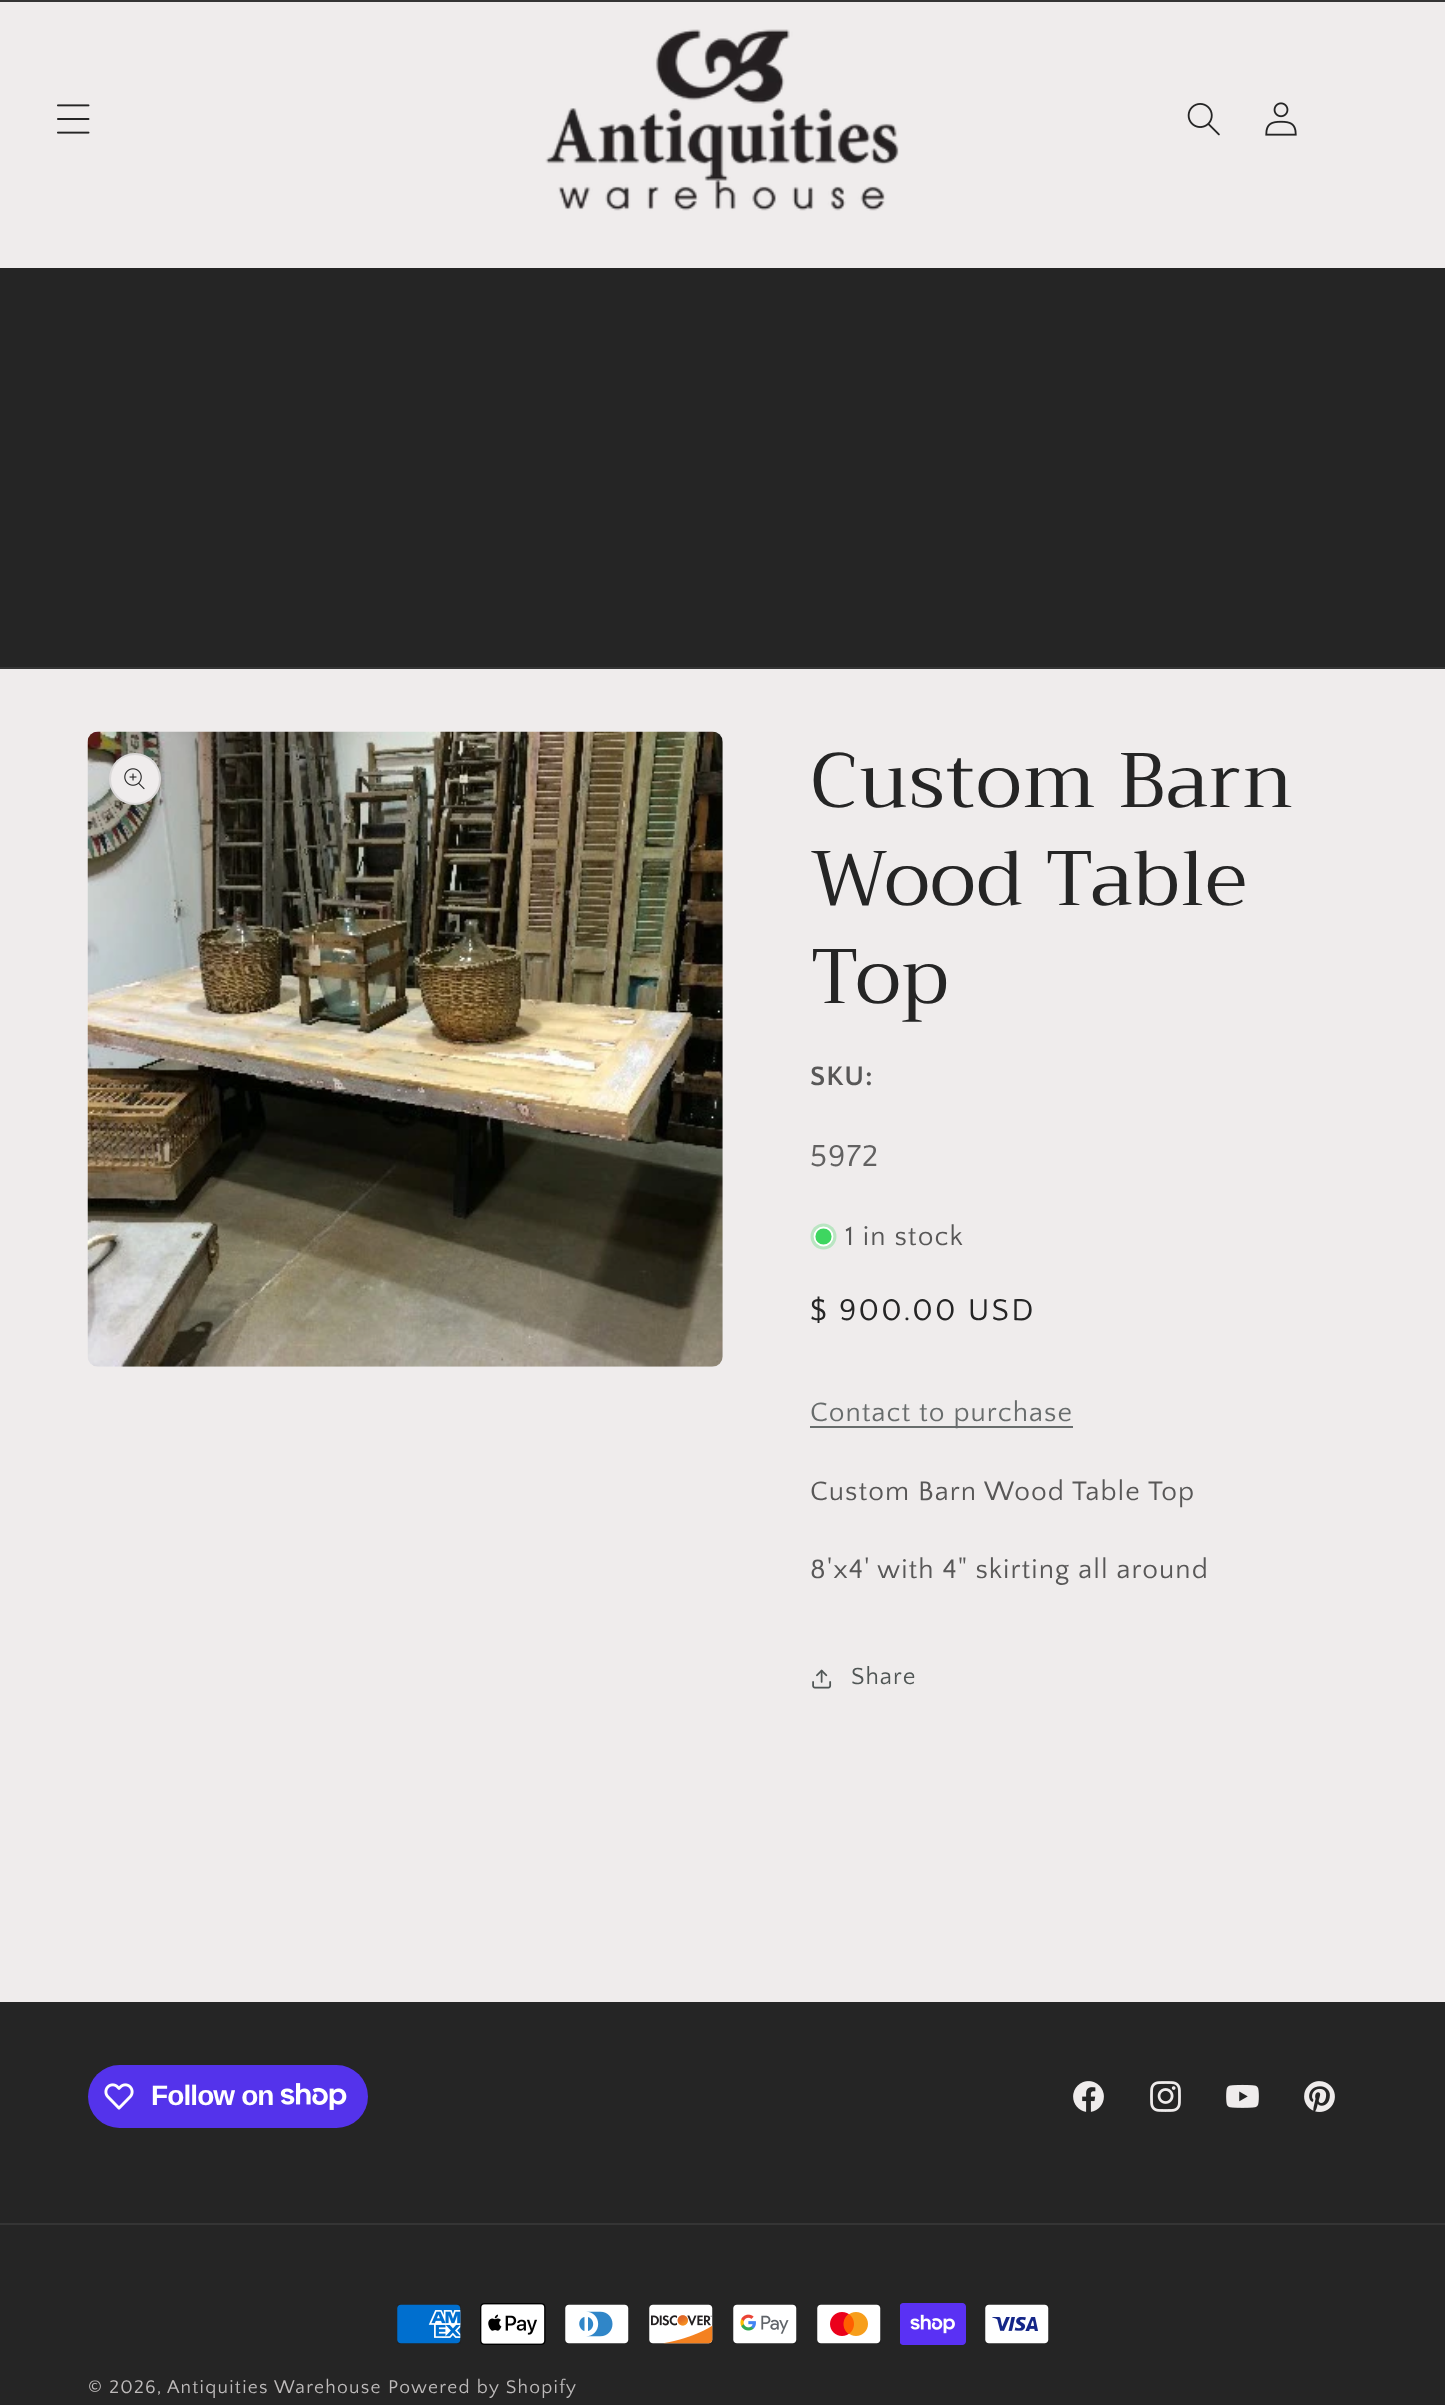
(async () => {
    const canvas = document.querySelector("canvas");
    canvas.width = 1445;
    canvas.height = 2405;
    const context = canvas.getContext("2d");
    context.miterLimit = 4;
    context.fontKerning = "normal";
    function write(s, x, y, font, color) {
        context.font = font;
        context.fillStyle = color;
        context.fillText(s, x, y);
    }
    function block(x, y, w, h, color) {
        context.fillStyle = color;
        context.fillRect(x, y, w, h);
    }
    function card(x, y, w, h, r, color) {
        context.fillStyle = color;
        context.beginPath();
        context.roundRect(x, y, w, h, r);
        context.fill();
    }
    async function photo(src, x, y, w, h) {
        const img = new Image();
        img.src = src;
        await img.decode();
        context.drawImage(img, x, y, w, h);
    }

    block(0, 0, 1445, 2405, "rgb(239, 236, 236)");
    block(0, 0, 1445, 2, "rgb(53, 53, 53)");
    await photo("media/1.png", 57, 104, 33, 30);
    await photo("media/2.png", 545, 29, 354, 182);
    await photo("media/3.png", 1187, 103, 33, 33);
    await photo("media/4.png", 1265, 102, 32, 34);
    block(0, 268, 1445, 399, "rgb(37, 37, 37)");
    block(0, 667, 1445, 2, "rgb(53, 53, 53)");
    await photo("media/5.png", 87, 731, 636, 636);
    context.fillStyle = "rgb(239, 236, 236)";
    context.beginPath();
    context.arc(135, 779, 26, 0, Math.PI * 2);
    context.fill();
    context.beginPath();
    context.arc(135, 779, 25, 0, Math.PI * 2);
    context.strokeStyle = "rgba(37, 37, 37, 0.1)";
    context.lineWidth = 2;
    context.stroke();
    await photo("media/6.png", 124, 768, 21, 22);
    context.letterSpacing = "1.25px";
    write("Custom Barn", 810, 807, "77px Trirong", "rgb(37, 37, 37)");
    write("Wood Table", 810, 905, "77px Trirong", "rgb(37, 37, 37)");
    write("Top", 810, 1003, "77px Trirong", "rgb(37, 37, 37)");
    context.letterSpacing = "1.05px";
    write("SKU:", 810, 1085, "bold 28px Quattrocento Sans", "rgb(88, 87, 87)");
    write("5972", 810, 1166, "31.5px Quattrocento Sans", "rgb(98, 97, 97)");
    context.fillStyle = "rgb(186, 229, 194)";
    context.beginPath();
    context.arc(823.5, 1236.5, 13, 0, Math.PI * 2);
    context.fill();
    context.fillStyle = "rgb(62, 214, 96)";
    context.beginPath();
    context.arc(823.5, 1236.5, 9, 0, Math.PI * 2);
    context.fill();
    context.strokeStyle = "rgb(255, 255, 255)";
    context.lineWidth = 1.8;
    context.stroke();
    write("1 in stock", 845, 1245, "28px Quattrocento Sans", "rgb(88, 87, 87)");
    context.letterSpacing = "2.25px";
    write("$ 900.00 USD", 810, 1320, "31.5px Quattrocento Sans", "rgb(37, 37, 37)");
    block(810, 1426, 263, 2, "rgb(104, 109, 108)");
    context.letterSpacing = "1.05px";
    write("Contact to purchase", 810, 1421, "28px Quattrocento Sans", "rgb(104, 108, 108)");
    write("Custom Barn Wood Table Top", 810, 1500, "28px Quattrocento Sans", "rgb(88, 87, 87)");
    write("8'x4' with 4\" skirting all around", 810, 1578, "28px Quattrocento Sans", "rgb(88, 87, 87)");
    await photo("media/7.png", 812, 1669, 20, 20);
    write("Share", 851, 1684, "24.5px Quattrocento Sans", "rgb(80, 86, 85)");
    block(0, 2002, 1445, 403, "rgb(37, 37, 37)");
    card(88, 2065, 280, 63, 31.5, "rgb(84, 51, 235)");
    await photo("media/8.png", 104, 2083, 30, 27);
    context.letterSpacing = "-0.9px";
    write("Follow on", 151, 2105, "bold 28px Liberation Sans", "rgb(255, 255, 255)");
    await photo("media/9.png", 280, 2083, 67, 27);
    await photo("media/10.png", 1073, 2081, 31, 31);
    await photo("media/11.png", 1150, 2081, 31, 31);
    await photo("media/12.png", 1226, 2084, 33, 24);
    await photo("media/13.png", 1304, 2081, 31, 31);
    block(0, 2223, 1445, 2, "rgb(53, 53, 53)");
    await photo("media/14.png", 397, 2304, 64, 40);
    await photo("media/15.png", 480, 2303, 66, 42);
    await photo("media/16.png", 565, 2304, 64, 40);
    await photo("media/17.png", 649, 2304, 64, 40);
    await photo("media/18.png", 733, 2304, 64, 40);
    await photo("media/19.png", 817, 2304, 64, 40);
    await photo("media/20.png", 900, 2303, 66, 42);
    await photo("media/21.png", 985, 2304, 64, 40);
    context.letterSpacing = "1.25px";
    write("© 2026,", 88, 2393, "19.25px Quattrocento Sans", "rgb(189, 186, 186)");
    write("Antiquities Warehouse", 167, 2393, "19.25px Quattrocento Sans", "rgb(189, 186, 186)");
    write("Powered by Shopify", 388, 2393, "19.25px Quattrocento Sans", "rgb(189, 186, 186)");
})();
